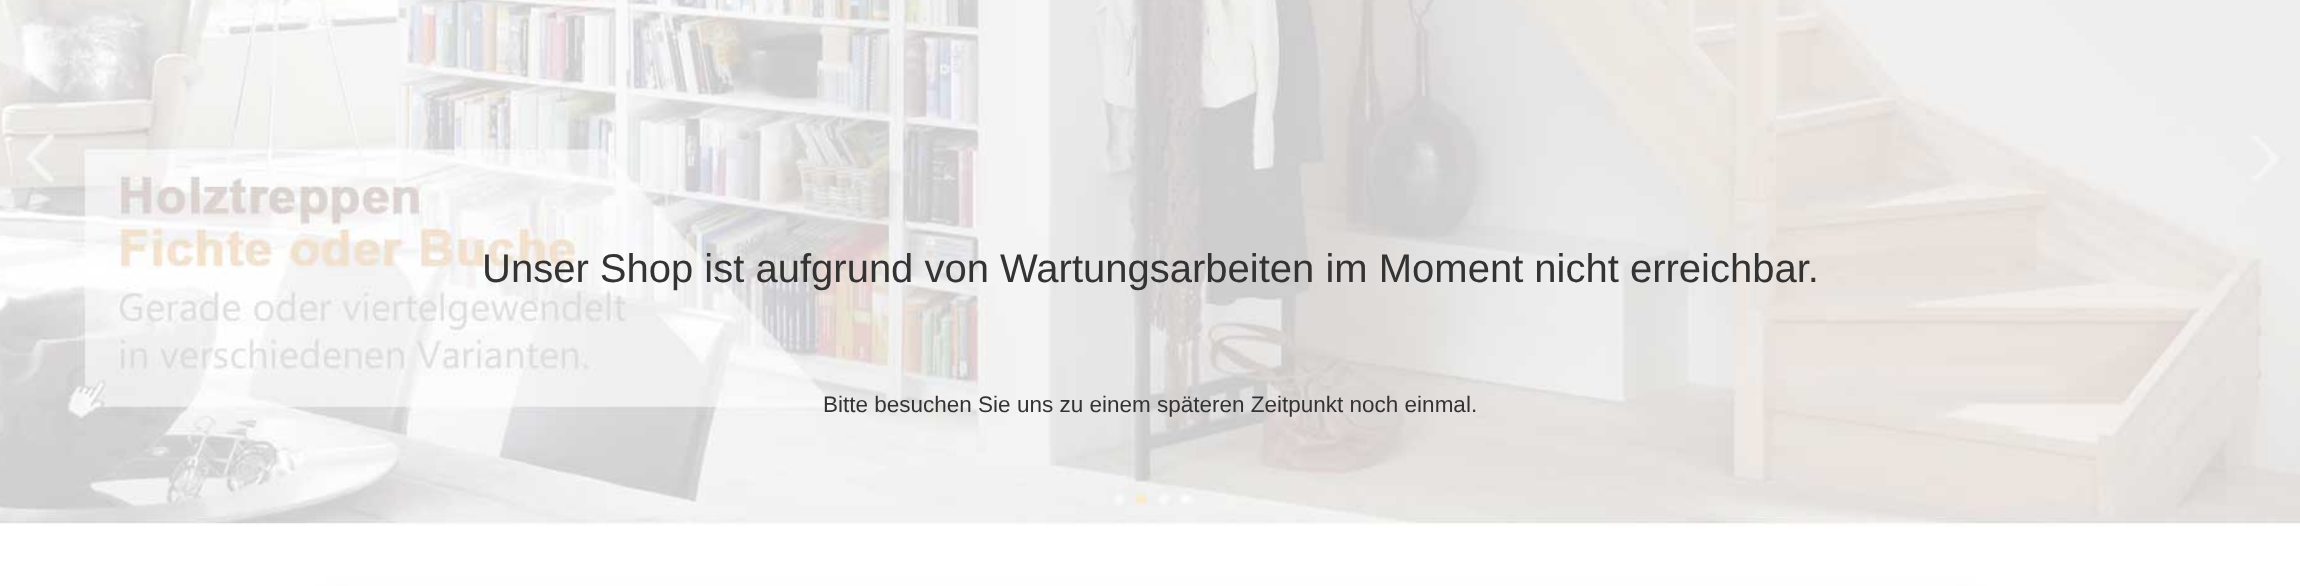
(async () => {
    const canvas = document.querySelector("canvas");
    canvas.width = 2300;
    canvas.height = 586;
    const context = canvas.getContext("2d");
    context.miterLimit = 4;
    context.fontKerning = "normal";
    function write(s, x, y, font, color) {
        context.font = font;
        context.fillStyle = color;
        context.fillText(s, x, y);
    }
    function block(x, y, w, h, color) {
        context.fillStyle = color;
        context.fillRect(x, y, w, h);
    }
    async function photo(src, x, y, w, h) {
        const img = new Image();
        img.src = src;
        await img.decode();
        context.drawImage(img, x, y, w, h);
    }

    block(0, 0, 2300, 586, "rgb(255, 255, 255)");
    await photo("media/1.png", 0, 0, 2300, 586);
    write("Unser Shop ist aufgrund von Wartungsarbeiten im Moment nicht erreichbar.", 482, 282, "40px Liberation Sans", "rgb(51, 51, 51)");
    write("Bitte besuchen Sie uns zu einem späteren Zeitpunkt noch einmal.", 823, 412, "22.5px Liberation Sans", "rgb(51, 51, 51)");
})();
